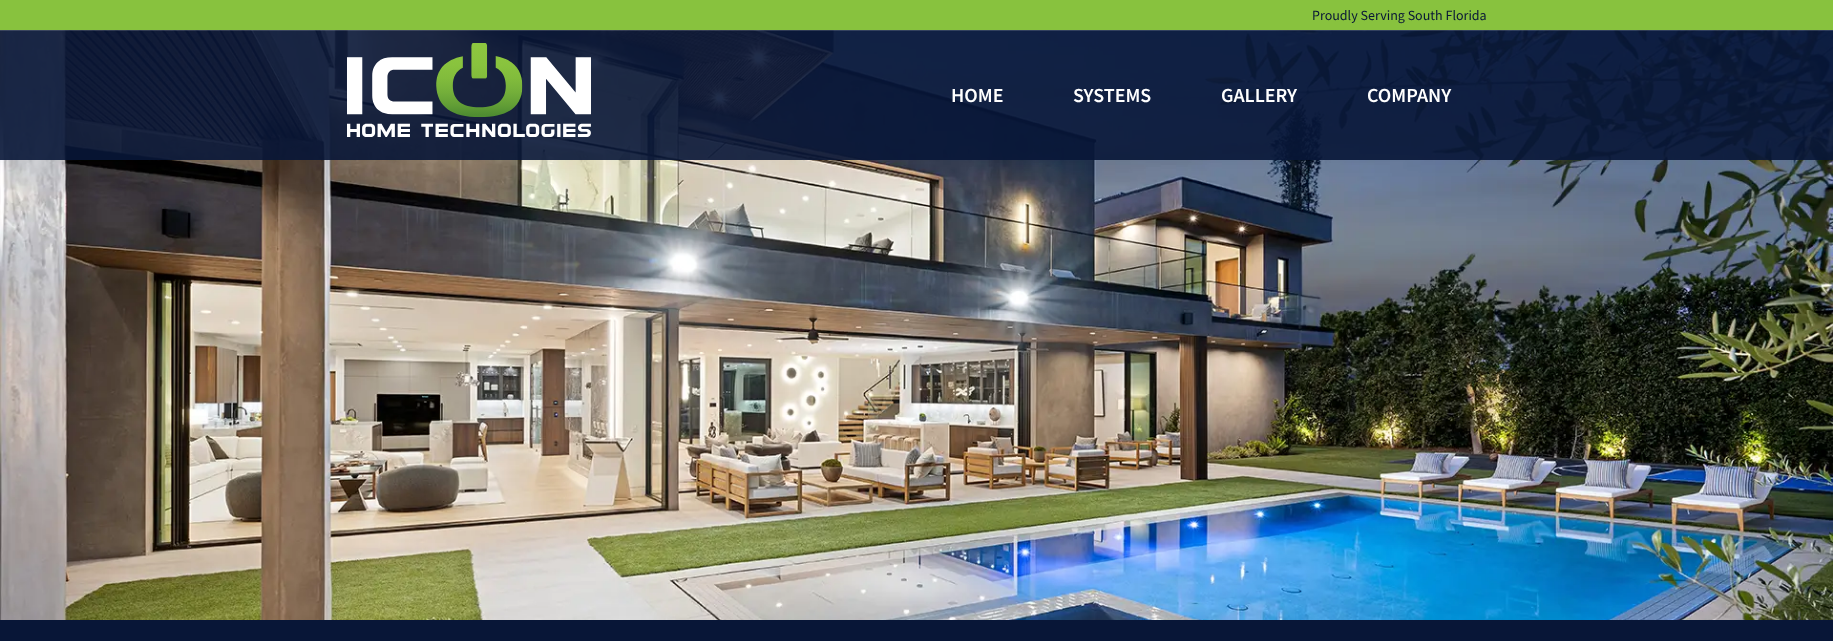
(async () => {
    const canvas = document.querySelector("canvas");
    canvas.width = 1833;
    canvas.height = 641;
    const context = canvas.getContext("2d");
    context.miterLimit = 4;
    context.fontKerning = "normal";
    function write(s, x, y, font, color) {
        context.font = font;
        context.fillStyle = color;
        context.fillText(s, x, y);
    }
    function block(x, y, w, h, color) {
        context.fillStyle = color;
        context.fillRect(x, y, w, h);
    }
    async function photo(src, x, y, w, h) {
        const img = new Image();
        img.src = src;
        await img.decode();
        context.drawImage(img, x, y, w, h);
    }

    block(0, 0, 1833, 641, "rgb(8, 22, 55)");
    block(0, 0, 1833, 30, "rgb(136, 194, 62)");
    write("Proudly Serving South Florida", 1312, 20, "14px Source Sans Pro", "rgb(8, 22, 55)");
    await photo("media/2.png", 0, 30, 1833, 590);
    block(0, 30, 1833, 130, "rgba(8, 22, 55, 0.9)");
    block(0, 30, 1833, 1, "rgba(255, 255, 255, 0.15)");
    await photo("media/1.png", 347, 43, 244, 94);
    write("HOME", 951, 102, "600 20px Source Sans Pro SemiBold", "rgb(255, 255, 255)");
    write("SYSTEMS", 1073, 102, "600 20px Source Sans Pro SemiBold", "rgb(255, 255, 255)");
    write("GALLERY", 1221, 102, "600 20px Source Sans Pro SemiBold", "rgb(255, 255, 255)");
    write("COMPANY", 1367, 102, "600 20px Source Sans Pro SemiBold", "rgb(255, 255, 255)");
})();
